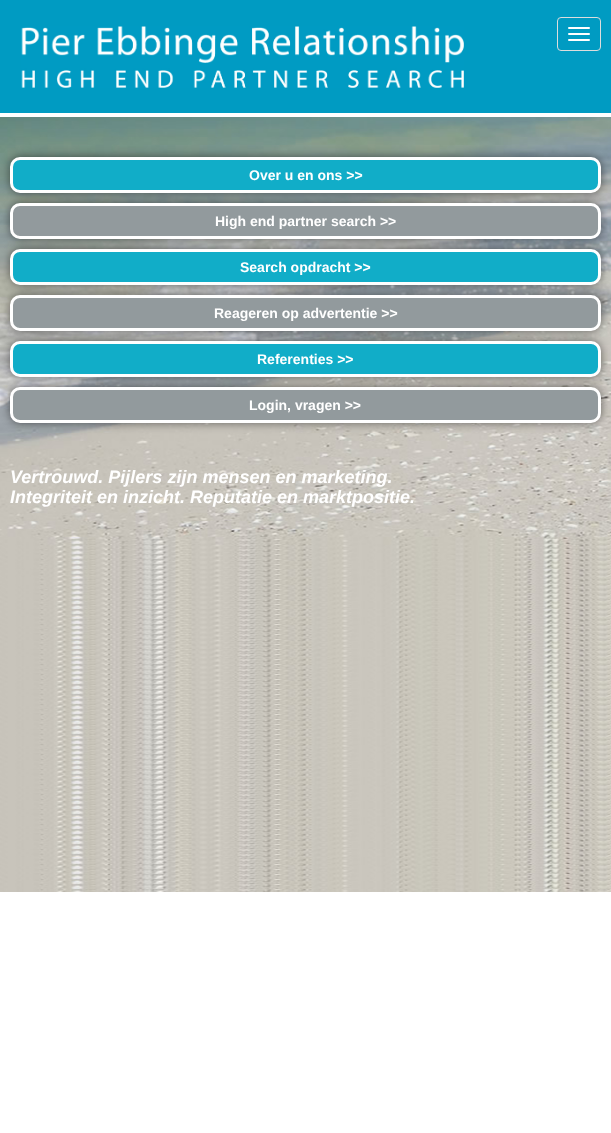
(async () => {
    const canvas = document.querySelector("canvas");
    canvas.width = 611;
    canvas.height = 1133;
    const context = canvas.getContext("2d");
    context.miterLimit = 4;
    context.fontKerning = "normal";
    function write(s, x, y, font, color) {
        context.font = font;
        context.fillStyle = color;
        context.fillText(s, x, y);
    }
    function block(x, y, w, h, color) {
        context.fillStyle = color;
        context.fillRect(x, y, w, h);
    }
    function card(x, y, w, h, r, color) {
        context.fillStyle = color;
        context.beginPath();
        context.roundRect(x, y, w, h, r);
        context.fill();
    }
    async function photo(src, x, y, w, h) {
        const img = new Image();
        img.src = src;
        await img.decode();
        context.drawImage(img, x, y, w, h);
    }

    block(0, 0, 611, 1133, "rgb(255, 255, 255)");
    await photo("media/1.png", 0, 117, 611, 775);
    block(0, 0, 611, 113, "rgb(0, 155, 194)");
    await photo("media/2.png", 21, 26, 443, 62);
    context.beginPath();
    context.roundRect(557.5, 17.5, 43, 33, 3.5);
    context.strokeStyle = "rgb(221, 221, 221)";
    context.stroke();
    card(568, 27, 22, 2, 1, "rgb(255, 255, 255)");
    card(568, 33, 22, 2, 1, "rgb(255, 255, 255)");
    card(568, 39, 22, 2, 1, "rgb(255, 255, 255)");
    context.fillStyle = "rgba(0, 0, 0, 0.5)";
    context.filter = "blur(5px)";
    context.beginPath();
    context.roundRect(10, 157, 591, 36, 10);
    context.fill();
    context.filter = "none";
    context.fillStyle = "rgb(17, 173, 200)";
    context.beginPath();
    context.roundRect(11.5, 158.5, 588, 33, 8.5);
    context.fill();
    context.strokeStyle = "rgb(255, 255, 255)";
    context.lineWidth = 3;
    context.stroke();
    write("Over u en ons >>", 249, 180, "bold 14px Liberation Sans", "rgb(255, 255, 255)");
    context.fillStyle = "rgba(0, 0, 0, 0.5)";
    context.filter = "blur(5px)";
    context.beginPath();
    context.roundRect(10, 249, 591, 36, 10);
    context.fill();
    context.filter = "none";
    context.fillStyle = "rgb(17, 173, 200)";
    context.beginPath();
    context.roundRect(11.5, 250.5, 588, 33, 8.5);
    context.fill();
    context.stroke();
    context.fillStyle = "rgba(0, 0, 0, 0.5)";
    context.filter = "blur(5px)";
    context.beginPath();
    context.roundRect(10, 203, 591, 36, 10);
    context.fill();
    context.filter = "none";
    context.fillStyle = "rgb(146, 154, 157)";
    context.beginPath();
    context.roundRect(11.5, 204.5, 588, 33, 8.5);
    context.fill();
    context.stroke();
    write("High end partner search >>", 215, 226, "bold 14px Liberation Sans", "rgb(255, 255, 255)");
    write("Search opdracht >>", 240, 272, "bold 14px Liberation Sans", "rgb(255, 255, 255)");
    context.fillStyle = "rgba(0, 0, 0, 0.5)";
    context.filter = "blur(5px)";
    context.beginPath();
    context.roundRect(10, 341, 591, 36, 10);
    context.fill();
    context.filter = "none";
    context.fillStyle = "rgb(17, 173, 200)";
    context.beginPath();
    context.roundRect(11.5, 342.5, 588, 33, 8.5);
    context.fill();
    context.stroke();
    context.fillStyle = "rgba(0, 0, 0, 0.5)";
    context.filter = "blur(5px)";
    context.beginPath();
    context.roundRect(10, 295, 591, 36, 10);
    context.fill();
    context.filter = "none";
    context.fillStyle = "rgb(146, 154, 157)";
    context.beginPath();
    context.roundRect(11.5, 296.5, 588, 33, 8.5);
    context.fill();
    context.stroke();
    write("Reageren op advertentie >>", 214, 318, "bold 14px Liberation Sans", "rgb(255, 255, 255)");
    write("Referenties >>", 257, 364, "bold 14px Liberation Sans", "rgb(255, 255, 255)");
    context.fillStyle = "rgba(0, 0, 0, 0.5)";
    context.filter = "blur(5px)";
    context.beginPath();
    context.roundRect(10, 387, 591, 36, 10);
    context.fill();
    context.filter = "none";
    context.fillStyle = "rgb(146, 154, 157)";
    context.beginPath();
    context.roundRect(11.5, 388.5, 588, 33, 8.5);
    context.fill();
    context.stroke();
    write("Login, vragen >>", 249, 410, "bold 14px Liberation Sans", "rgb(255, 255, 255)");
    write("Vertrouwd. Pijlers zijn mensen en marketing.", 10, 483, "italic bold 18px Liberation Sans", "rgb(255, 255, 255)");
    write("Integriteit en inzicht. Reputatie en marktpositie.", 10, 503, "italic bold 18px Liberation Sans", "rgb(255, 255, 255)");
})();
